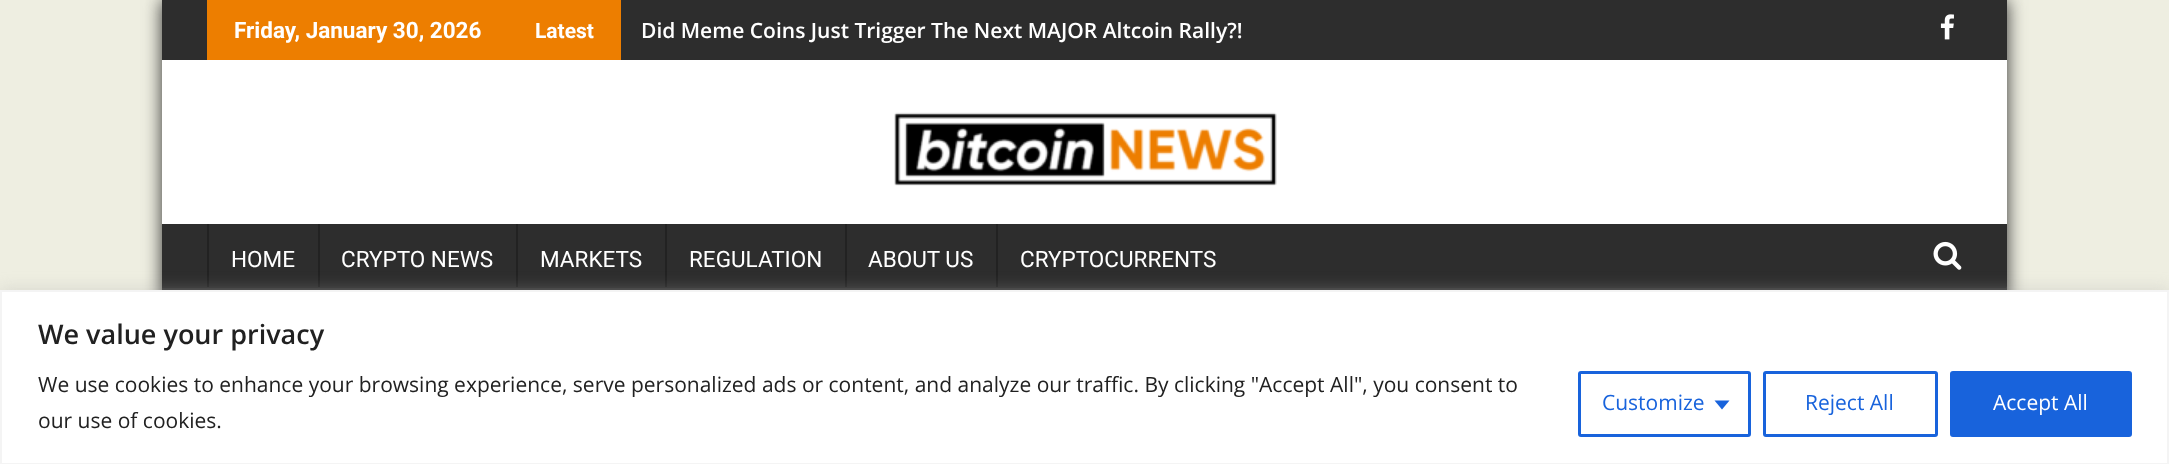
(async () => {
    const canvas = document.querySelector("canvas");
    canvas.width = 2169;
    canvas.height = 464;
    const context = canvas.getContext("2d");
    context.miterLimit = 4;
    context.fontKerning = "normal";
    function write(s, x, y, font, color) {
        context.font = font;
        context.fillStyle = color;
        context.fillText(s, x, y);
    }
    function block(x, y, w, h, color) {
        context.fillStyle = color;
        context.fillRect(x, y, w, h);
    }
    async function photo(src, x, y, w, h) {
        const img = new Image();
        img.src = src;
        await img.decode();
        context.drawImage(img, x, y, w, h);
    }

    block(0, 0, 2169, 464, "rgb(238, 238, 225)");
    context.fillStyle = "rgb(45, 45, 45)";
    context.filter = "blur(9px)";
    context.beginPath();
    context.rect(162, 0, 1845, 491);
    context.fill();
    context.filter = "none";
    block(162, 60, 1845, 164, "rgb(255, 255, 255)");
    block(162, 0, 1845, 60, "rgb(45, 45, 45)");
    block(207, 0, 414, 60, "rgb(237, 126, 0)");
    write("Friday, January 30, 2026", 234, 38, "bold 22.5px Roboto", "rgb(255, 255, 255)");
    write("Latest", 535, 38, "bold 21px Roboto", "rgb(255, 255, 255)");
    write("Did Meme Coins Just Trigger The Next MAJOR Altcoin Rally?!", 641, 38, "600 21px Open Sans", "rgb(255, 255, 255)");
    await photo("media/1.png", 1940, 14, 14, 26);
    await photo("media/2.png", 894, 112, 383, 74);
    block(162, 224, 1845, 64, "rgb(45, 45, 45)");
    context.save();
    context.beginPath();
    context.rect(162, 224, 1845, 70);
    context.clip();
    context.fillStyle = "rgb(57, 57, 57)";
    context.beginPath();
    context.moveTo(14, 75);
    context.lineTo(2156, 75);
    context.lineTo(2156, 442);
    context.lineTo(14, 442);
    context.closePath();
    context.moveTo(160, 214);
    context.lineTo(2006, 214);
    context.bezierCurveTo(2006, 214, 2007, 215, 2007, 216);
    context.lineTo(2007, 286);
    context.bezierCurveTo(2007, 287, 2006, 288, 2006, 288);
    context.lineTo(160, 288);
    context.bezierCurveTo(160, 288, 159, 287, 159, 286);
    context.lineTo(159, 216);
    context.bezierCurveTo(159, 215, 160, 214, 160, 214);
    context.closePath();
    context.fill("evenodd");
    context.restore();
    block(207, 224, 2, 63, "rgb(34, 34, 34)");
    write("HOME", 231, 267, "22.5px Roboto", "rgb(255, 255, 255)");
    block(318, 224, 2, 63, "rgb(34, 34, 34)");
    write("CRYPTO NEWS", 341, 267, "22.5px Roboto", "rgb(255, 255, 255)");
    block(516, 224, 2, 63, "rgb(34, 34, 34)");
    write("MARKETS", 540, 267, "22.5px Roboto", "rgb(255, 255, 255)");
    block(665, 224, 2, 63, "rgb(34, 34, 34)");
    write("REGULATION", 689, 267, "22.5px Roboto", "rgb(255, 255, 255)");
    block(845, 224, 2, 63, "rgb(34, 34, 34)");
    write("ABOUT US", 868, 267, "22.5px Roboto", "rgb(255, 255, 255)");
    block(996, 224, 2, 63, "rgb(34, 34, 34)");
    write("CRYPTOCURRENTS", 1020, 267, "22.5px Roboto", "rgb(255, 255, 255)");
    await photo("media/3.png", 1933, 241, 29, 29);
    context.fillStyle = "rgba(172, 171, 171, 0.3)";
    context.filter = "blur(7.5px)";
    context.beginPath();
    context.rect(0, 288, 2169, 176);
    context.fill();
    context.filter = "none";
    context.fillStyle = "rgb(255, 255, 255)";
    context.beginPath();
    context.rect(1, 291, 2167, 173);
    context.fill();
    context.strokeStyle = "rgb(244, 244, 244)";
    context.lineWidth = 2;
    context.stroke();
    write("We value your privacy", 38, 344, "600 27px Open Sans", "rgb(33, 33, 33)");
    write("We use cookies to enhance your browsing experience, serve personalized ads or content, and analyze our traffic. By clicking \"Accept All\", you consent to", 38, 392, "21px Open Sans", "rgb(33, 33, 33)");
    write("our use of cookies.", 38, 428, "21px Open Sans", "rgb(33, 33, 33)");
    context.beginPath();
    context.roundRect(1579.5, 372.5, 170, 63, 1.5);
    context.strokeStyle = "rgb(24, 99, 220)";
    context.lineWidth = 3;
    context.stroke();
    write("Customize", 1602, 410, "21px Open Sans", "rgb(24, 99, 220)");
    context.beginPath();
    context.moveTo(1714.5, 400.5);
    context.lineTo(1729.5, 400.5);
    context.lineTo(1722, 409.5);
    context.closePath();
    context.fill();
    context.beginPath();
    context.roundRect(1764.5, 372.5, 172, 63, 1.5);
    context.stroke();
    write("Reject All", 1805, 410, "21px Open Sans", "rgb(24, 99, 220)");
    context.beginPath();
    context.roundRect(1951.5, 372.5, 179, 63, 1.5);
    context.fill();
    context.stroke();
    write("Accept All", 1993, 410, "21px Open Sans", "rgb(255, 255, 255)");
})();
